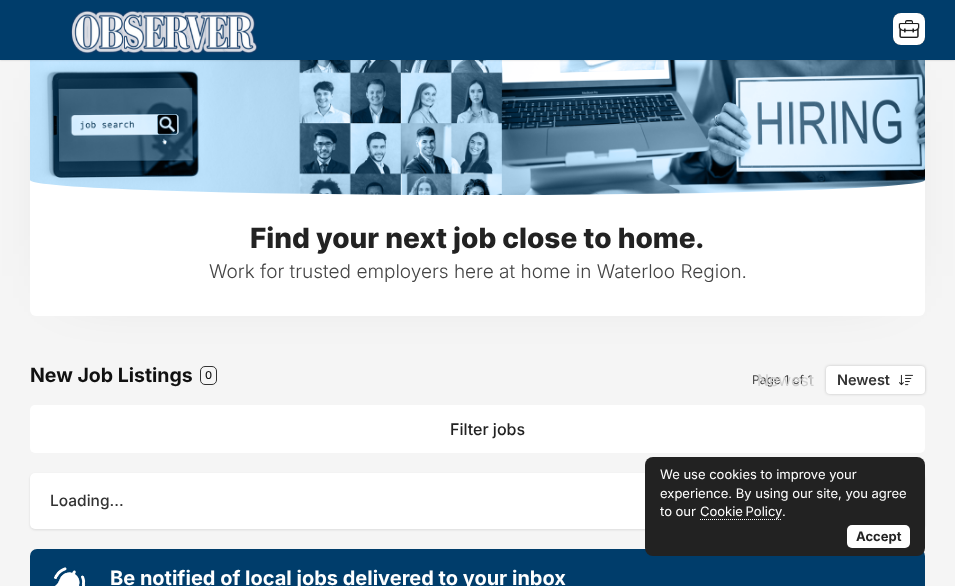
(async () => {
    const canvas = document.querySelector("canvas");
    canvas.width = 955;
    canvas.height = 586;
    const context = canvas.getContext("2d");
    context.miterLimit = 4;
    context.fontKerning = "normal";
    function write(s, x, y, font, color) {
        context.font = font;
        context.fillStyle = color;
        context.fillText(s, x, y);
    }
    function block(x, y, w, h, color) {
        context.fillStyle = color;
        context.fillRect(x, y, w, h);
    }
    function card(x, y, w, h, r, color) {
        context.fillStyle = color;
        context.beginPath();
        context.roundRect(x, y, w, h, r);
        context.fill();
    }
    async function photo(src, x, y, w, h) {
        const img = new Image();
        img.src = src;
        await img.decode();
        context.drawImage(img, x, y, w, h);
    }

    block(0, 0, 955, 586, "rgb(245, 245, 245)");
    context.beginPath();
    context.roundRect(200.5, 366.5, 16, 18, 4.5);
    context.strokeStyle = "rgb(51, 51, 51)";
    context.stroke();
    context.fillStyle = "rgba(0, 0, 0, 0.2)";
    context.filter = "blur(1.5px)";
    context.beginPath();
    context.roundRect(826, 366, 99, 28, 4);
    context.fill();
    context.filter = "none";
    card(826, 366, 99, 28, 4, "rgb(255, 255, 255)");
    await photo("media/4.png", 899, 374, 14, 12);
    context.fillStyle = "rgba(0, 0, 0, 0.2)";
    context.filter = "blur(32.5px)";
    context.beginPath();
    context.rect(70, 100, 815, 176);
    context.fill();
    context.filter = "none";
    context.fillStyle = "rgb(255, 255, 255)";
    context.beginPath();
    context.roundRect(30, 60, 895, 256, [0, 0, 6, 6]);
    context.fill();
    await photo("media/3.png", 30, 60, 895, 135);
    context.fillStyle = "rgba(0, 0, 0, 0.2)";
    context.filter = "blur(1px)";
    context.beginPath();
    context.rect(0, 0, 955, 60);
    context.fill();
    context.filter = "none";
    block(0, 0, 955, 60, "rgb(0, 61, 107)");
    await photo("media/1.png", 70, 10, 188, 44);
    context.fillStyle = "rgba(0, 0, 0, 0.9)";
    context.filter = "blur(0.5px)";
    context.beginPath();
    context.roundRect(893, 13, 32, 32, 8);
    context.fill();
    context.filter = "none";
    card(893, 13, 32, 32, 8, "rgb(255, 255, 255)");
    await photo("media/2.png", 898, 20, 22, 18);
    write("Find your next job close to home.", 250, 248, "800 28px Inter", "rgb(34, 34, 34)");
    write("Work for trusted employers here at home in Waterloo Region.", 209, 278, "300 19px Inter", "rgb(68, 68, 68)");
    write("New Job Listings", 30, 382, "bold 19.5px Inter", "rgb(17, 17, 17)");
    write("0", 205, 379, "500 11px Inter", "rgb(17, 17, 17)");
    write("Page 1 of 1", 752, 384, "12px Inter", "rgb(68, 68, 68)");
    context.beginPath();
    context.moveTo(912, 378);
    context.lineTo(916, 382);
    context.lineTo(920, 378);
    context.strokeStyle = "rgb(255, 255, 255)";
    context.lineWidth = 2;
    context.stroke();
    write("Newest", 757, 386, "16px Inter", "rgb(208, 208, 208)");
    write("Newest", 837, 385, "600 14.5px Inter", "rgb(51, 51, 51)");
    card(30, 405, 895, 48, 5, "rgb(255, 255, 255)");
    write("Filter jobs", 450, 435, "500 16px Inter", "rgb(34, 34, 34)");
    context.fillStyle = "rgba(0, 0, 0, 0.1)";
    context.filter = "blur(1px)";
    context.beginPath();
    context.roundRect(30, 474, 895, 56, 5);
    context.fill();
    context.filter = "none";
    card(30, 473, 895, 56, 5, "rgb(255, 255, 255)");
    write("Loading...", 50, 506, "500 15.5px Inter", "rgb(51, 51, 51)");
    card(30, 549, 895, 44, 7, "rgb(0, 61, 107)");
    await photo("media/5.png", 54, 567, 32, 19);
    write("Be notified of local jobs delivered to your inbox", 110, 585, "bold 20px Inter", "rgb(255, 255, 255)");
    card(645, 457, 280, 99, 8, "rgb(34, 34, 34)");
    write("We use cookies to improve your", 660, 479, "13px Inter", "rgb(255, 255, 255)");
    write("experience. By using our site, you agree", 660, 498, "13px Inter", "rgb(255, 255, 255)");
    write("to our", 660, 516, "13px Inter", "rgb(255, 255, 255)");
    context.wordSpacing = "-1px";
    write("Cookie Policy", 700, 516, "13px Inter", "rgb(255, 255, 255)");
    context.beginPath();
    context.moveTo(700, 519.5);
    context.lineTo(782, 519.5);
    context.lineWidth = 1;
    context.setLineDash([1, 1]);
    context.stroke();
    context.wordSpacing = "0px";
    write(".", 782, 516, "13px Inter", "rgb(255, 255, 255)");
    card(847, 525, 63, 23, 5, "rgb(255, 255, 255)");
    write("Accept", 856, 541, "bold 13px Inter", "rgb(34, 34, 34)");
})();
